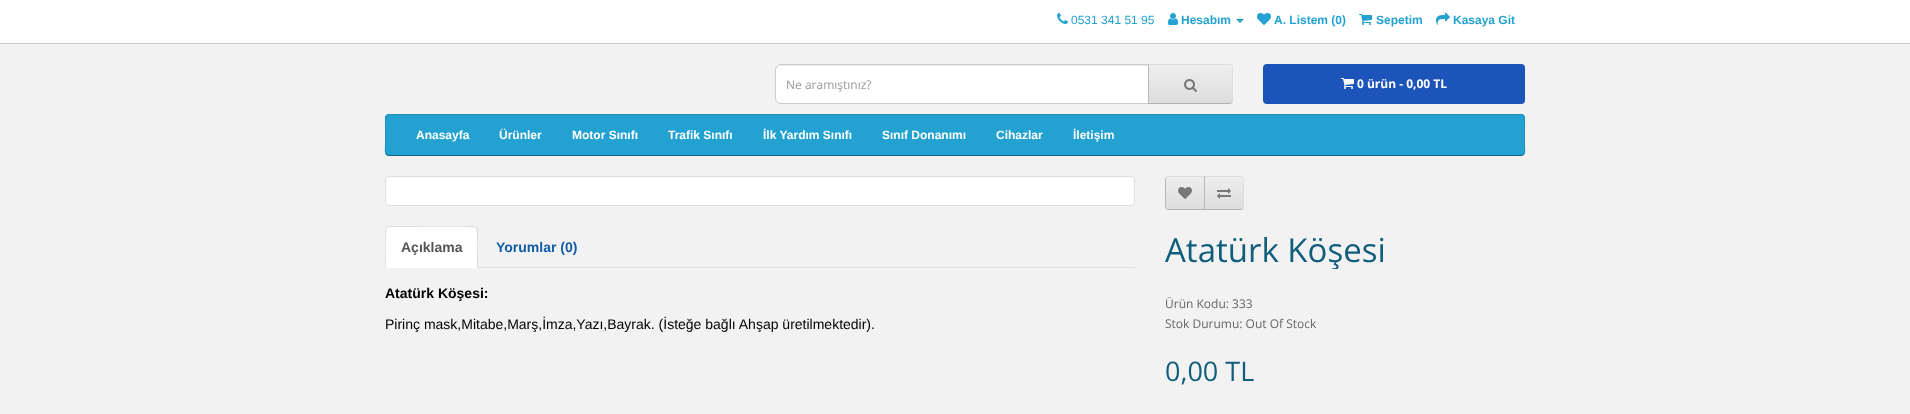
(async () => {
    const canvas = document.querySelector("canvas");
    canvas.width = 1910;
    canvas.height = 414;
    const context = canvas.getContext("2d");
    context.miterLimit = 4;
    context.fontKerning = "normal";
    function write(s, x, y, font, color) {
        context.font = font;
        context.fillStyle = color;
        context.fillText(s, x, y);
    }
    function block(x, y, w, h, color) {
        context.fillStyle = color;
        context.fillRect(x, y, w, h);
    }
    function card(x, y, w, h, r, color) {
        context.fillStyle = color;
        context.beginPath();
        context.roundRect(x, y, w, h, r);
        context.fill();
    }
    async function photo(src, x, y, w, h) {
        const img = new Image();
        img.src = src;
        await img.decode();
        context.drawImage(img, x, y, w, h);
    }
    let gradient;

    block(0, 0, 1910, 414, "rgb(242, 242, 242)");
    block(0, 0, 1910, 43, "rgb(255, 255, 255)");
    block(0, 43, 1910, 1, "rgb(204, 203, 203)");
    await photo("media/1.png", 1057, 13, 11, 11);
    write("0531 341 51 95", 1071, 24, "12px Liberation Sans", "rgb(35, 161, 209)");
    await photo("media/2.png", 1168, 13, 10, 12);
    write("Hesabım", 1181, 24, "bold 12px Liberation Sans", "rgb(35, 161, 209)");
    context.beginPath();
    context.moveTo(1236, 19);
    context.lineTo(1244, 19);
    context.lineTo(1240, 23);
    context.closePath();
    context.fill();
    await photo("media/3.png", 1257, 13, 14, 12);
    write("A. Listem (0)", 1274, 24, "bold 12px Liberation Sans", "rgb(35, 161, 209)");
    await photo("media/4.png", 1359, 14, 13, 11);
    write("Sepetim", 1376, 24, "bold 12px Liberation Sans", "rgb(35, 161, 209)");
    await photo("media/5.png", 1436, 12, 14, 13);
    write("Kasaya Git", 1453, 24, "bold 12px Liberation Sans", "rgb(35, 161, 209)");
    context.fillStyle = "rgb(255, 255, 255)";
    context.beginPath();
    context.roundRect(775, 64, 374, 40, [6, 0, 0, 6]);
    context.fill();
    context.fillStyle = "rgb(236, 236, 236)";
    context.beginPath();
    context.moveTo(781, 66);
    context.lineTo(1148, 66);
    context.lineTo(1148, 65);
    context.lineTo(781, 65);
    context.bezierCurveTo(778, 65, 776, 67, 776, 70);
    context.lineTo(776, 71);
    context.bezierCurveTo(776, 68, 778, 66, 781, 66);
    context.closePath();
    context.fill();
    context.beginPath();
    context.roundRect(775.5, 64.5, 373, 39, [5.5, 0, 0, 5.5]);
    context.strokeStyle = "rgb(204, 204, 204)";
    context.stroke();
    write("Ne aramıştınız?", 786, 89, "12px Open Sans", "rgb(153, 153, 153)");
    context.fillStyle = "rgb(231, 231, 231)";
    context.beginPath();
    context.roundRect(1148, 64, 85, 40, [0, 4, 4, 0]);
    context.fill();
    context.save();
    context.beginPath();
    context.roundRect(1148, 64, 85, 40, [0, 4, 4, 0]);
    context.clip();
    gradient = context.createLinearGradient(1191, 65, 1191, 103);
    gradient.addColorStop(0, "rgb(238, 238, 238)");
    gradient.addColorStop(1, "rgb(221, 221, 221)");
    context.fillStyle = gradient;
    context.fillRect(1149, 65, 84, 38);
    context.restore();
    context.fillStyle = "rgb(221, 221, 221)";
    context.beginPath();
    context.moveTo(1148, 64);
    context.lineTo(1149, 65);
    context.lineTo(1230, 65);
    context.lineTo(1231, 66);
    context.lineTo(1232, 65);
    context.lineTo(1229, 64);
    context.closePath();
    context.fill();
    context.beginPath();
    context.moveTo(1233, 100);
    context.lineTo(1233, 68);
    context.bezierCurveTo(1233, 67, 1232.5, 66, 1232, 65);
    context.lineTo(1231, 66);
    context.bezierCurveTo(1232, 66, 1232, 67, 1232, 68);
    context.lineTo(1232, 100);
    context.bezierCurveTo(1232, 101, 1232, 102, 1231, 102);
    context.lineTo(1232, 103);
    context.bezierCurveTo(1232.5, 102, 1233, 101, 1233, 100);
    context.closePath();
    context.fill();
    context.fillStyle = "rgb(179, 179, 179)";
    context.beginPath();
    context.moveTo(1229, 104);
    context.lineTo(1232, 103);
    context.lineTo(1231, 102);
    context.lineTo(1230, 103);
    context.lineTo(1149, 103);
    context.lineTo(1148, 104);
    context.closePath();
    context.fill();
    context.fillStyle = "rgb(183, 183, 183)";
    context.beginPath();
    context.moveTo(1148, 64);
    context.lineTo(1148, 104);
    context.lineTo(1149, 103);
    context.lineTo(1149, 65);
    context.closePath();
    context.fill();
    await photo("media/6.png", 1184, 79, 13, 13);
    card(1263, 64, 262, 40, 4, "rgb(29, 84, 186)");
    await photo("media/7.png", 1341, 78, 13, 11);
    write("0 ürün - 0,00 TL", 1357, 88, "bold 12px Open Sans", "rgb(255, 255, 255)");
    card(385, 114, 1140, 42, 4, "rgb(35, 161, 209)");
    context.beginPath();
    context.moveTo(1523.5, 154.5);
    context.lineTo(1521, 155.5);
    context.lineTo(389, 155.5);
    context.lineTo(386.5, 154.5);
    context.strokeStyle = "rgb(20, 94, 122)";
    context.stroke();
    context.beginPath();
    context.moveTo(386.5, 154.5);
    context.bezierCurveTo(384.5, 152.5, 385.5, 148, 385.5, 146.5);
    context.lineTo(385.5, 123.5);
    context.bezierCurveTo(385.5, 121, 384.5, 114.5, 389, 114.5);
    context.lineTo(1521, 114.5);
    context.bezierCurveTo(1525.5, 114.5, 1524.5, 121, 1524.5, 123.5);
    context.lineTo(1524.5, 146.5);
    context.bezierCurveTo(1524.5, 148, 1525.5, 152.5, 1523.5, 154.5);
    context.strokeStyle = "rgb(31, 144, 187)";
    context.stroke();
    write("Anasayfa", 416, 139, "bold 12px Liberation Sans", "rgb(255, 255, 255)");
    write("Ürünler", 499, 139, "bold 12px Liberation Sans", "rgb(255, 255, 255)");
    write("Motor Sınıfı", 572, 139, "bold 12px Liberation Sans", "rgb(255, 255, 255)");
    write("Trafik Sınıfı", 668, 139, "bold 12px Liberation Sans", "rgb(255, 255, 255)");
    write("İlk Yardım Sınıfı", 763, 139, "bold 12px Liberation Sans", "rgb(255, 255, 255)");
    write("Sınıf Donanımı", 882, 139, "bold 12px Liberation Sans", "rgb(255, 255, 255)");
    write("Cihazlar", 996, 139, "bold 12px Liberation Sans", "rgb(255, 255, 255)");
    write("İletişim", 1073, 139, "bold 12px Liberation Sans", "rgb(255, 255, 255)");
    context.beginPath();
    context.roundRect(385.5, 176.5, 749, 29, 3.5);
    context.fill();
    context.strokeStyle = "rgb(221, 221, 221)";
    context.stroke();
    block(478, 267, 657, 1, "rgb(221, 221, 221)");
    context.fillStyle = "rgb(255, 255, 255)";
    context.beginPath();
    context.roundRect(385, 226, 93, 42, [4, 4, 0, 0]);
    context.fill();
    context.fillStyle = "rgb(221, 221, 221)";
    context.beginPath();
    context.moveTo(389, 226);
    context.lineTo(386, 227);
    context.lineTo(387, 228);
    context.lineTo(389, 227);
    context.lineTo(403, 227);
    context.bezierCurveTo(411, 227, 474, 226, 476, 228);
    context.lineTo(477, 227);
    context.lineTo(474, 226);
    context.closePath();
    context.fill();
    context.beginPath();
    context.moveTo(478, 268);
    context.lineTo(478, 230);
    context.bezierCurveTo(478, 229, 478, 228, 477, 227);
    context.lineTo(476, 228);
    context.bezierCurveTo(478, 230, 477, 262, 477, 267);
    context.closePath();
    context.fill();
    context.beginPath();
    context.moveTo(385, 268);
    context.lineTo(386, 267);
    context.bezierCurveTo(386, 262, 385, 230, 387, 228);
    context.lineTo(386, 227);
    context.lineTo(385, 230);
    context.closePath();
    context.fill();
    write("Açıklama", 401, 252, "bold 14px Liberation Sans", "rgb(85, 85, 85)");
    write("Yorumlar (0)", 496, 252, "bold 14px Liberation Sans", "rgb(18, 92, 167)");
    write("Atatürk Köşesi:", 385, 298, "bold 14px Liberation Sans", "rgb(0, 0, 0)");
    write("Pirinç mask,Mitabe,Marş,İmza,Yazı,Bayrak. (İsteğe bağlı Ahşap üretilmektedir).", 385, 329, "14px Liberation Sans", "rgb(0, 0, 0)");
    context.save();
    context.beginPath();
    context.roundRect(1165, 176, 40, 34, [4, 0, 0, 4]);
    context.clip();
    gradient = context.createLinearGradient(1185, 177, 1185, 209);
    gradient.addColorStop(0, "rgb(238, 238, 238)");
    gradient.addColorStop(1, "rgb(221, 221, 221)");
    context.fillStyle = gradient;
    context.fillRect(1165, 177, 39, 32);
    context.restore();
    context.fillStyle = "rgb(221, 221, 221)";
    context.beginPath();
    context.moveTo(1169, 176);
    context.bezierCurveTo(1168, 176, 1167, 176.5, 1166, 177);
    context.lineTo(1167, 178);
    context.bezierCurveTo(1167, 177, 1168, 177, 1169, 177);
    context.lineTo(1204, 177);
    context.lineTo(1205, 176);
    context.closePath();
    context.fill();
    context.fillStyle = "rgb(179, 179, 179)";
    context.beginPath();
    context.moveTo(1205, 210);
    context.lineTo(1204, 209);
    context.lineTo(1169, 209);
    context.bezierCurveTo(1168, 209, 1167, 209, 1167, 208);
    context.lineTo(1166, 209);
    context.bezierCurveTo(1167, 209.5, 1168, 210, 1169, 210);
    context.closePath();
    context.fill();
    context.fillStyle = "rgb(183, 183, 183)";
    context.beginPath();
    context.moveTo(1165, 180);
    context.lineTo(1165, 206);
    context.bezierCurveTo(1165, 207, 1165.5, 208, 1166, 209);
    context.lineTo(1167, 208);
    context.bezierCurveTo(1166, 208, 1166, 207, 1166, 206);
    context.lineTo(1166, 180);
    context.bezierCurveTo(1166, 179, 1166, 178, 1167, 178);
    context.lineTo(1166, 177);
    context.bezierCurveTo(1165.5, 178, 1165, 179, 1165, 180);
    context.closePath();
    context.fill();
    await photo("media/8.png", 1178, 187, 14, 12);
    context.save();
    context.beginPath();
    context.roundRect(1204, 176, 40, 34, [0, 4, 4, 0]);
    context.clip();
    gradient = context.createLinearGradient(1224, 177, 1224, 209);
    gradient.addColorStop(0, "rgb(238, 238, 238)");
    gradient.addColorStop(1, "rgb(221, 221, 221)");
    context.fillStyle = gradient;
    context.fillRect(1205, 177, 39, 32);
    context.restore();
    context.fillStyle = "rgb(221, 221, 221)";
    context.beginPath();
    context.moveTo(1204, 176);
    context.lineTo(1205, 177);
    context.lineTo(1240, 177);
    context.bezierCurveTo(1241, 177, 1242, 177, 1242, 178);
    context.lineTo(1243, 177);
    context.bezierCurveTo(1242, 176.5, 1241, 176, 1240, 176);
    context.closePath();
    context.fill();
    context.beginPath();
    context.moveTo(1244, 206);
    context.lineTo(1244, 180);
    context.bezierCurveTo(1244, 179, 1243.5, 178, 1243, 177);
    context.lineTo(1242, 178);
    context.bezierCurveTo(1243, 178, 1243, 179, 1243, 180);
    context.lineTo(1243, 206);
    context.bezierCurveTo(1243, 207, 1243, 208, 1242, 208);
    context.lineTo(1243, 209);
    context.bezierCurveTo(1243.5, 208, 1244, 207, 1244, 206);
    context.closePath();
    context.fill();
    context.fillStyle = "rgb(179, 179, 179)";
    context.beginPath();
    context.moveTo(1240, 210);
    context.bezierCurveTo(1241, 210, 1242, 209.5, 1243, 209);
    context.lineTo(1242, 208);
    context.bezierCurveTo(1242, 209, 1241, 209, 1240, 209);
    context.lineTo(1205, 209);
    context.lineTo(1204, 210);
    context.closePath();
    context.fill();
    context.fillStyle = "rgb(183, 183, 183)";
    context.beginPath();
    context.moveTo(1204, 176);
    context.lineTo(1204, 210);
    context.lineTo(1205, 209);
    context.lineTo(1205, 177);
    context.closePath();
    context.fill();
    await photo("media/9.png", 1217, 188, 14, 11);
    context.save();
    context.beginPath();
    context.rect(1165, 232, 360, 37);
    context.clip();
    write("Atatürk Köşesi", 1165, 262, "33px Open Sans", "rgb(16, 94, 123)");
    context.restore();
    write("Ürün Kodu: 333", 1165, 308, "12px Open Sans", "rgb(102, 102, 102)");
    write("Stok Durumu: Out Of Stock", 1165, 328, "12px Open Sans", "rgb(102, 102, 102)");
    write("0,00 TL", 1165, 381, "27px Open Sans", "rgb(16, 94, 123)");
})();
